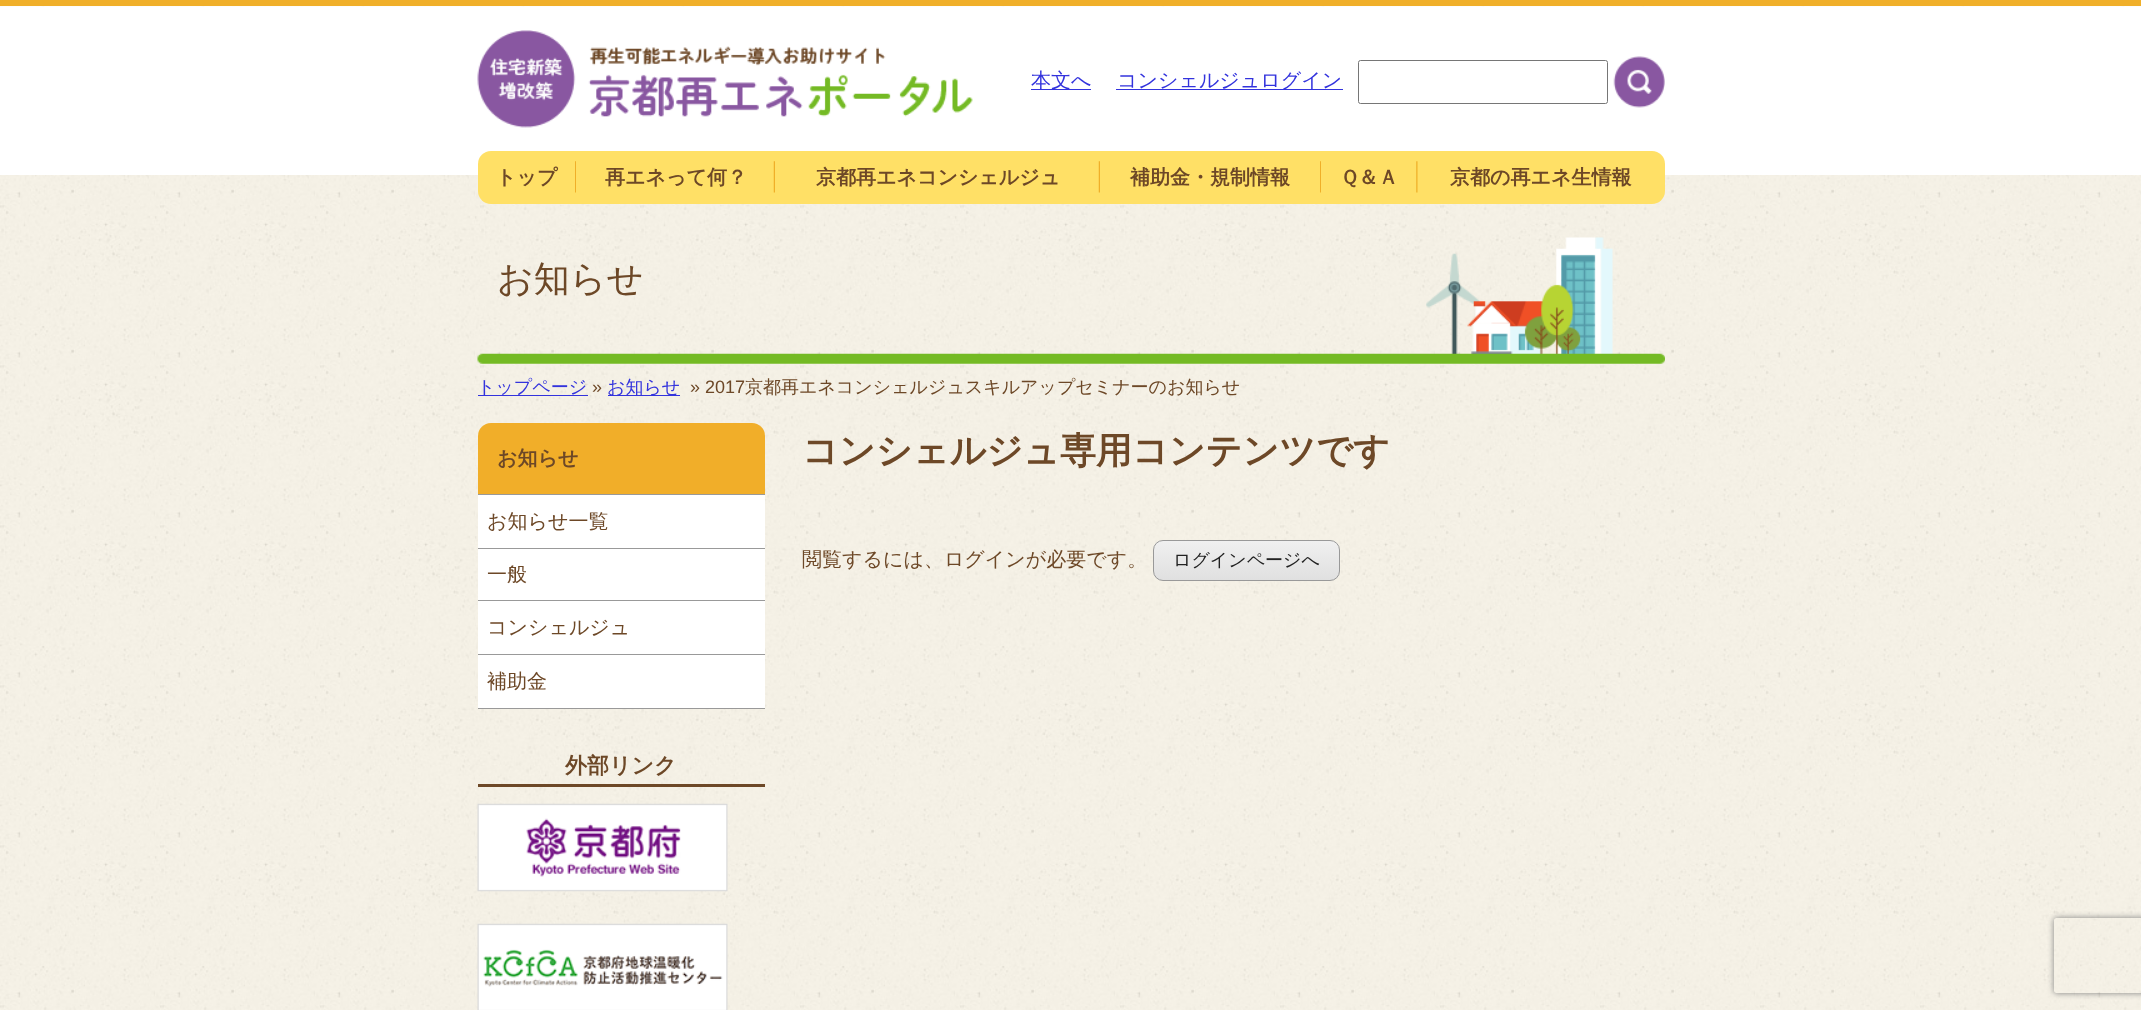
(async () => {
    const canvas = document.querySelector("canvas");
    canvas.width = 2141;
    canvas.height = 1010;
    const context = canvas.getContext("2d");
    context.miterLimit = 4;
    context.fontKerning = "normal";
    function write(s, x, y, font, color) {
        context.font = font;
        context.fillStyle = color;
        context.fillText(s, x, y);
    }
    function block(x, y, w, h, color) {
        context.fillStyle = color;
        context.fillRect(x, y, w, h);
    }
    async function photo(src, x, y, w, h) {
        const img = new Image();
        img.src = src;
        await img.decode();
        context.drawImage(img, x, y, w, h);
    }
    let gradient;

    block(0, 0, 2141, 1010, "rgb(255, 255, 255)");
    block(0, 0, 2141, 6, "rgb(240, 175, 41)");
    await photo("media/1.png", 0, 6, 2141, 1004);
    await photo("media/2.png", 477, 30, 496, 98);
    block(1031, 89, 60, 1, "rgb(51, 51, 221)");
    write("本文へ", 1031, 87, "500 20px WenQuanYi Zen Hei", "rgb(51, 51, 221)");
    block(1116, 89, 227, 1, "rgb(51, 51, 221)");
    write("コンシェルジュログイン", 1117, 87, "500 20px WenQuanYi Zen Hei", "rgb(51, 51, 221)");
    context.beginPath();
    context.roundRect(1358.5, 60.5, 249, 43, 2);
    context.strokeStyle = "rgb(118, 118, 118)";
    context.stroke();
    await photo("media/3.png", 1613, 56, 52, 52);
    context.fillStyle = "rgb(255, 224, 102)";
    context.beginPath();
    context.roundRect(478, 151, 98, 53, [13, 0, 0, 13]);
    context.fill();
    await photo("media/4.png", 575, 161, 1, 32);
    write("トップ", 496, 184, "bold 20px WenQuanYi Zen Hei", "rgb(109, 72, 39)");
    block(576, 151, 842, 53, "rgb(255, 224, 102)");
    await photo("media/5.png", 773, 161, 2, 32);
    write("再エネって何？", 605, 184, "bold 20px WenQuanYi Zen Hei", "rgb(109, 72, 39)");
    await photo("media/5.png", 1098, 161, 2, 32);
    write("京都再エネコンシェルジュ", 816, 184, "bold 20px WenQuanYi Zen Hei", "rgb(109, 72, 39)");
    await photo("media/4.png", 1320, 161, 1, 32);
    write("補助金・規制情報", 1130, 184, "bold 20px WenQuanYi Zen Hei", "rgb(109, 72, 39)");
    await photo("media/6.png", 1416, 161, 2, 32);
    write("Ｑ＆Ａ", 1340, 184, "bold 20px WenQuanYi Zen Hei", "rgb(109, 72, 39)");
    context.fillStyle = "rgb(255, 224, 102)";
    context.beginPath();
    context.roundRect(1418, 151, 247, 53, [0, 13, 13, 0]);
    context.fill();
    write("京都の再エネ生情報", 1450, 184, "bold 20px WenQuanYi Zen Hei", "rgb(109, 72, 39)");
    await photo("media/7.png", 477, 237, 1188, 127);
    write("お知らせ", 497, 291, "500 36px WenQuanYi Zen Hei", "rgb(109, 72, 39)");
    block(478, 395, 110, 1, "rgb(51, 51, 221)");
    write("トップページ", 477, 393, "500 18px WenQuanYi Zen Hei", "rgb(51, 51, 221)");
    write("»", 592, 393, "18px Liberation Sans", "rgb(109, 72, 39)");
    block(608, 395, 72, 1, "rgb(51, 51, 221)");
    write("お知らせ", 607, 393, "500 18px WenQuanYi Zen Hei", "rgb(51, 51, 221)");
    write("» 2017", 690, 393, "18px Liberation Sans", "rgb(109, 72, 39)");
    write("京都再エネコンシェルジュスキルアップセミナーのお知らせ", 745, 393, "500 18px WenQuanYi Zen Hei", "rgb(109, 72, 39)");
    context.fillStyle = "rgb(241, 174, 41)";
    context.beginPath();
    context.roundRect(478, 423, 287, 72, [13, 13, 0, 0]);
    context.fill();
    block(478, 494, 287, 1, "rgb(153, 153, 153)");
    write("お知らせ", 497, 465, "bold 20px WenQuanYi Zen Hei", "rgb(109, 72, 39)");
    block(478, 495, 287, 53, "rgb(255, 255, 255)");
    block(478, 548, 287, 1, "rgb(153, 153, 153)");
    write("お知らせ一覧", 487, 528, "500 20px WenQuanYi Zen Hei", "rgb(109, 72, 39)");
    block(478, 549, 287, 51, "rgb(255, 255, 255)");
    block(478, 600, 287, 1, "rgb(153, 153, 153)");
    write("一般", 487, 581, "500 20px WenQuanYi Zen Hei", "rgb(109, 72, 39)");
    block(478, 601, 287, 53, "rgb(255, 255, 255)");
    block(478, 654, 287, 1, "rgb(153, 153, 153)");
    write("コンシェルジュ", 487, 634, "500 20px WenQuanYi Zen Hei", "rgb(109, 72, 39)");
    block(478, 655, 287, 53, "rgb(255, 255, 255)");
    block(478, 708, 287, 1, "rgb(153, 153, 153)");
    write("補助金", 487, 688, "500 20px WenQuanYi Zen Hei", "rgb(109, 72, 39)");
    block(478, 784, 287, 3, "rgb(109, 72, 39)");
    write("外部リンク", 565, 773, "bold 22px WenQuanYi Zen Hei", "rgb(109, 72, 39)");
    await photo("media/8.png", 477, 803, 251, 89);
    await photo("media/9.png", 477, 923, 251, 87);
    write("コンシェルジュ専用コンテンツです", 802, 463, "bold 36px WenQuanYi Zen Hei", "rgb(109, 72, 39)");
    write("閲覧するには、ログインが必要です。", 802, 566, "500 20px WenQuanYi Zen Hei", "rgb(109, 72, 39)");
    context.save();
    context.beginPath();
    context.roundRect(1153, 540, 187, 41, 10);
    context.clip();
    gradient = context.createLinearGradient(1246, 541, 1246, 580);
    gradient.addColorStop(0, "rgb(240, 240, 240)");
    gradient.addColorStop(1, "rgb(224, 224, 224)");
    context.fillStyle = gradient;
    context.fillRect(1154, 541, 185, 39);
    context.restore();
    context.beginPath();
    context.roundRect(1153.5, 540.5, 186, 40, 9.5);
    context.strokeStyle = "rgb(153, 153, 153)";
    context.stroke();
    write("ログインページへ", 1173, 566, "500 18px WenQuanYi Zen Hei", "rgb(34, 34, 34)");
    context.save();
    context.beginPath();
    context.moveTo(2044, 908);
    context.lineTo(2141, 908);
    context.lineTo(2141, 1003);
    context.lineTo(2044, 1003);
    context.closePath();
    context.moveTo(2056.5, 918);
    context.lineTo(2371.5, 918);
    context.bezierCurveTo(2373, 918, 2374, 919, 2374, 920.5);
    context.lineTo(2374, 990.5);
    context.bezierCurveTo(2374, 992, 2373, 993, 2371.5, 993);
    context.lineTo(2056.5, 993);
    context.bezierCurveTo(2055, 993, 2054, 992, 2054, 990.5);
    context.lineTo(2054, 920.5);
    context.bezierCurveTo(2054, 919, 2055, 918, 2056.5, 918);
    context.closePath();
    context.clip("evenodd");
    context.fillStyle = "rgb(128, 128, 128)";
    context.filter = "blur(3px)";
    context.beginPath();
    context.roundRect(2054, 918, 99, 75, 2.5);
    context.fill();
    context.filter = "none";
    context.restore();
})();
